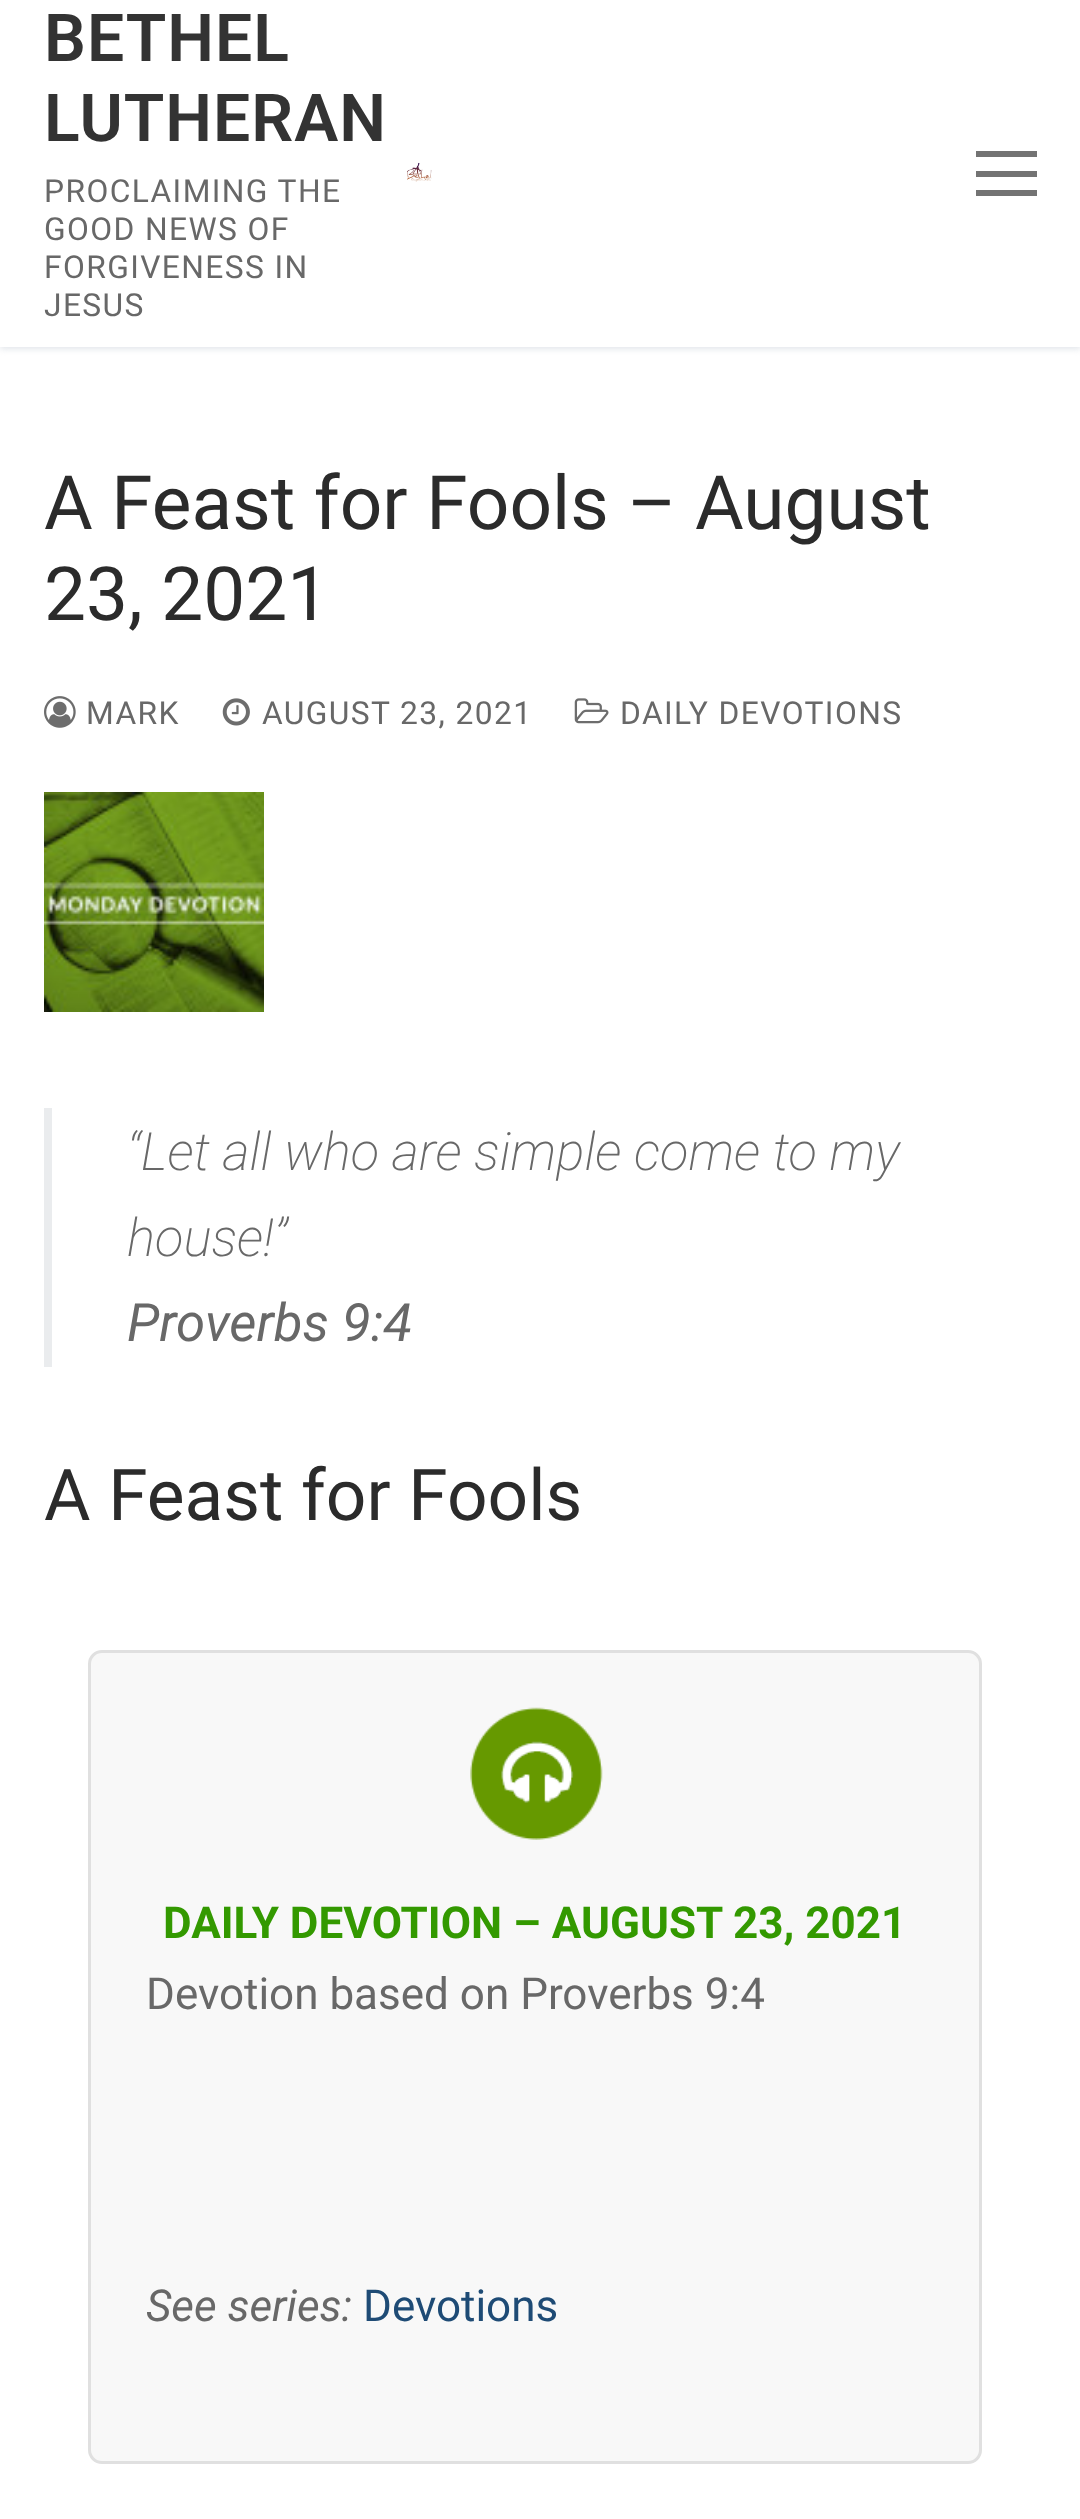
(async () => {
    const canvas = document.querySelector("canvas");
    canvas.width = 1080;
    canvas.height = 2519;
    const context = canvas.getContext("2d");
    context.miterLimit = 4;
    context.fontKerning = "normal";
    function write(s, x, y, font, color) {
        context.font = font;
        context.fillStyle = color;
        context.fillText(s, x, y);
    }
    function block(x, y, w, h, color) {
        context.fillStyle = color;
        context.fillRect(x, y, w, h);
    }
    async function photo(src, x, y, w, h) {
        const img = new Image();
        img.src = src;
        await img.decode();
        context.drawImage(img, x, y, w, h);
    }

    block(0, 0, 1080, 2519, "rgb(255, 255, 255)");
    context.fillStyle = "rgb(225, 229, 234)";
    context.filter = "blur(3px)";
    context.beginPath();
    context.rect(0, 3, 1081, 346);
    context.fill();
    context.filter = "none";
    block(0, 0, 1080, 347, "rgb(255, 255, 255)");
    context.letterSpacing = "1px";
    write("BETHEL", 44, 61, "600 66px Roboto", "rgb(51, 51, 51)");
    write("LUTHERAN", 44, 141, "600 66px Roboto", "rgb(51, 51, 51)");
    context.letterSpacing = "1.4px";
    write("PROCLAIMING THE", 44, 202, "31.75px Roboto", "rgb(104, 104, 104)");
    write("GOOD NEWS OF", 44, 240, "31.75px Roboto", "rgb(104, 104, 104)");
    write("FORGIVENESS IN", 44, 278, "31.75px Roboto", "rgb(104, 104, 104)");
    write("JESUS", 44, 316, "31.75px Roboto", "rgb(104, 104, 104)");
    await photo("media/1.png", 407, 162, 25, 20);
    block(976, 171, 61, 6, "rgb(115, 115, 115)");
    block(976, 151, 61, 6, "rgb(115, 115, 115)");
    block(976, 190, 61, 6, "rgb(115, 115, 115)");
    context.letterSpacing = "0px";
    write("A Feast for Fools – August", 44, 529, "74.75px Roboto", "rgb(43, 43, 43)");
    write("23, 2021", 44, 620, "74.75px Roboto", "rgb(43, 43, 43)");
    await photo("media/2.png", 44, 696, 32, 32);
    context.letterSpacing = "1.4px";
    write("MARK", 86, 724, "31.75px Roboto", "rgb(104, 104, 104)");
    await photo("media/3.png", 222, 698, 28, 28);
    write("AUGUST 23, 2021", 262, 724, "31.75px Roboto", "rgb(104, 104, 104)");
    await photo("media/4.png", 574, 698, 35, 26);
    write("DAILY DEVOTIONS", 620, 724, "31.75px Roboto", "rgb(104, 104, 104)");
    await photo("media/5.png", 44, 792, 220, 220);
    block(44, 1108, 8, 259, "rgb(234, 236, 238)");
    context.letterSpacing = "0px";
    write("“Let all who are simple come to my", 127, 1170, "italic 200 52.75px Roboto", "rgb(104, 104, 104)");
    write("house!”", 127, 1256, "italic 200 52.75px Roboto", "rgb(104, 104, 104)");
    write("Proverbs 9:4", 127, 1341, "italic 52.75px Roboto", "rgb(104, 104, 104)");
    write("A Feast for Fools", 44, 1520, "71.25px Roboto", "rgb(43, 43, 43)");
    context.fillStyle = "rgb(248, 248, 248)";
    context.beginPath();
    context.roundRect(89.5, 1651.5, 891, 811, 12.5);
    context.fill();
    context.strokeStyle = "rgb(224, 224, 224)";
    context.lineWidth = 3;
    context.stroke();
    await photo("media/6.png", 470, 1707, 133, 133);
    write("DAILY DEVOTION – AUGUST 23, 2021", 163, 1938, "bold 44px Roboto", "rgb(51, 153, 0)");
    write("Devotion based on Proverbs 9:4", 146, 2009, "44px Roboto", "rgb(104, 104, 104)");
    write("See series:", 146, 2321, "italic 44px Roboto", "rgb(104, 104, 104)");
    write("Devotions", 363, 2321, "44px Roboto", "rgb(30, 75, 117)");
})();
